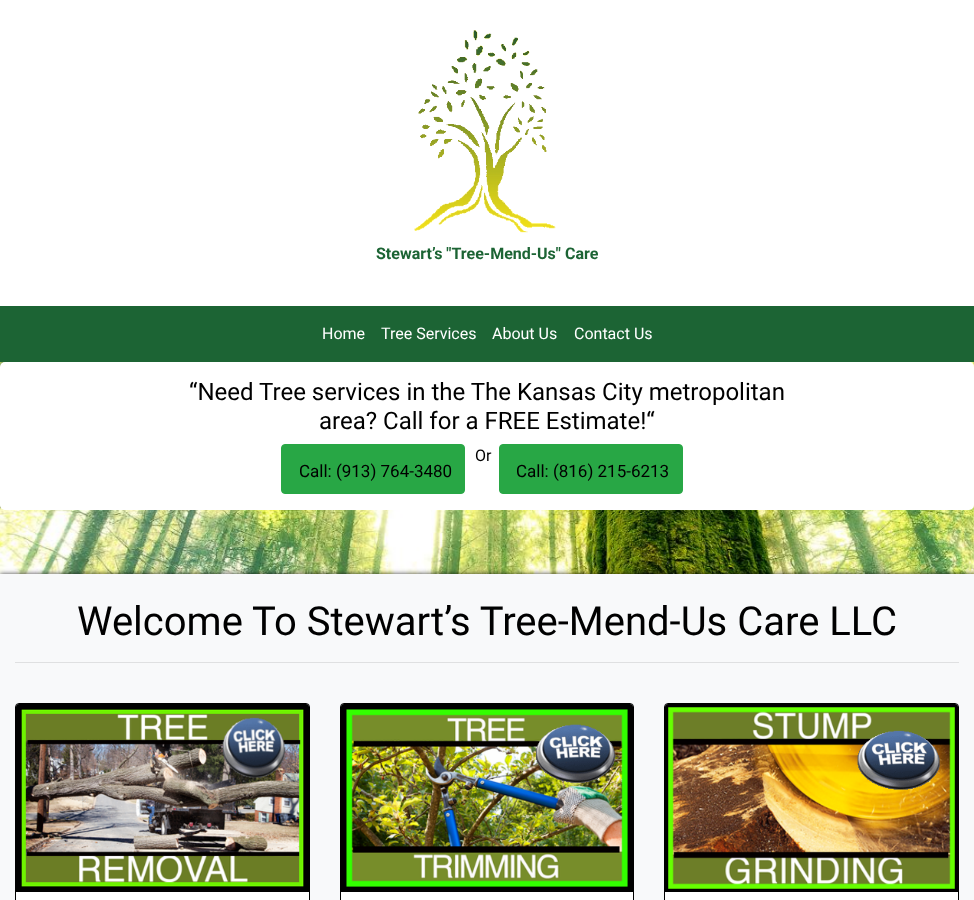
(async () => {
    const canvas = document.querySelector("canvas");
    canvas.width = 974;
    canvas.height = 900;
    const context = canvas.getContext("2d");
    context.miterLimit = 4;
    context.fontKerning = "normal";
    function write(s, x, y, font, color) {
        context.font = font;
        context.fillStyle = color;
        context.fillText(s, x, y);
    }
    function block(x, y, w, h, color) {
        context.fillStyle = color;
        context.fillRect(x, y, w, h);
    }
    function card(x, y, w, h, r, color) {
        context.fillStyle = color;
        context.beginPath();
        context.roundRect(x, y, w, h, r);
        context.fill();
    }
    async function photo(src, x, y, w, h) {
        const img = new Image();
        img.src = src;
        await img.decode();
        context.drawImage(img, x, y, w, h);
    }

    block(0, 0, 974, 900, "rgb(255, 255, 255)");
    await photo("media/1.png", 0, 362, 974, 212);
    await photo("media/2.png", 414, 30, 142, 203);
    write("Stewart’s \"Tree-Mend-Us\" Care", 376, 259, "bold 16px Roboto", "rgb(28, 100, 52)");
    block(0, 306, 974, 56, "rgb(28, 100, 52)");
    write("Home", 322, 339, "16px Roboto", "rgb(255, 255, 255)");
    write("Tree Services", 381, 339, "16px Roboto", "rgb(255, 255, 255)");
    write("About Us", 492, 339, "16px Roboto", "rgb(255, 255, 255)");
    write("Contact Us", 574, 339, "16px Roboto", "rgb(255, 255, 255)");
    card(0, 362, 974, 148, 5, "rgb(255, 255, 255)");
    write("“Need Tree services in the The Kansas City metropolitan", 189, 400, "24px Roboto", "rgb(0, 0, 0)");
    write("area? Call for a FREE Estimate!“", 319, 429, "24px Roboto", "rgb(0, 0, 0)");
    write("Or", 475, 461, "16px Roboto", "rgb(0, 0, 0)");
    context.fillStyle = "rgb(40, 167, 69)";
    context.beginPath();
    context.roundRect(281.5, 444.5, 183, 49, 3.5);
    context.fill();
    context.strokeStyle = "rgb(40, 167, 69)";
    context.stroke();
    write("Call: (913) 764-3480", 299, 477, "17px Roboto", "rgb(0, 0, 0)");
    context.fillStyle = "rgb(40, 167, 69)";
    context.beginPath();
    context.roundRect(499.5, 444.5, 183, 49, 3.5);
    context.fill();
    context.stroke();
    write("Call: (816) 215-6213", 516, 477, "17px Roboto", "rgb(0, 0, 0)");
    context.fillStyle = "rgba(0, 0, 0, 0.75)";
    context.filter = "blur(2.5px)";
    context.beginPath();
    context.rect(0, 574, 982, 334);
    context.fill();
    context.filter = "none";
    block(0, 574, 974, 326, "rgb(248, 249, 250)");
    write("Welcome To Stewart’s Tree-Mend-Us Care LLC", 77, 635, "40px Roboto", "rgb(0, 0, 0)");
    block(15, 662, 944, 1, "rgb(223, 224, 225)");
    context.fillStyle = "rgb(255, 255, 255)";
    context.beginPath();
    context.roundRect(15.5, 703.5, 294, 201, 3.5);
    context.fill();
    context.strokeStyle = "rgb(0, 0, 0)";
    context.stroke();
    await photo("media/3.png", 16, 704, 293, 188);
    context.beginPath();
    context.roundRect(340.5, 703.5, 293, 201, 3.5);
    context.fill();
    context.stroke();
    await photo("media/4.png", 341, 704, 292, 188);
    context.beginPath();
    context.roundRect(664.5, 703.5, 294, 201, 3.5);
    context.fill();
    context.stroke();
    await photo("media/5.png", 665, 704, 293, 188);
})();
